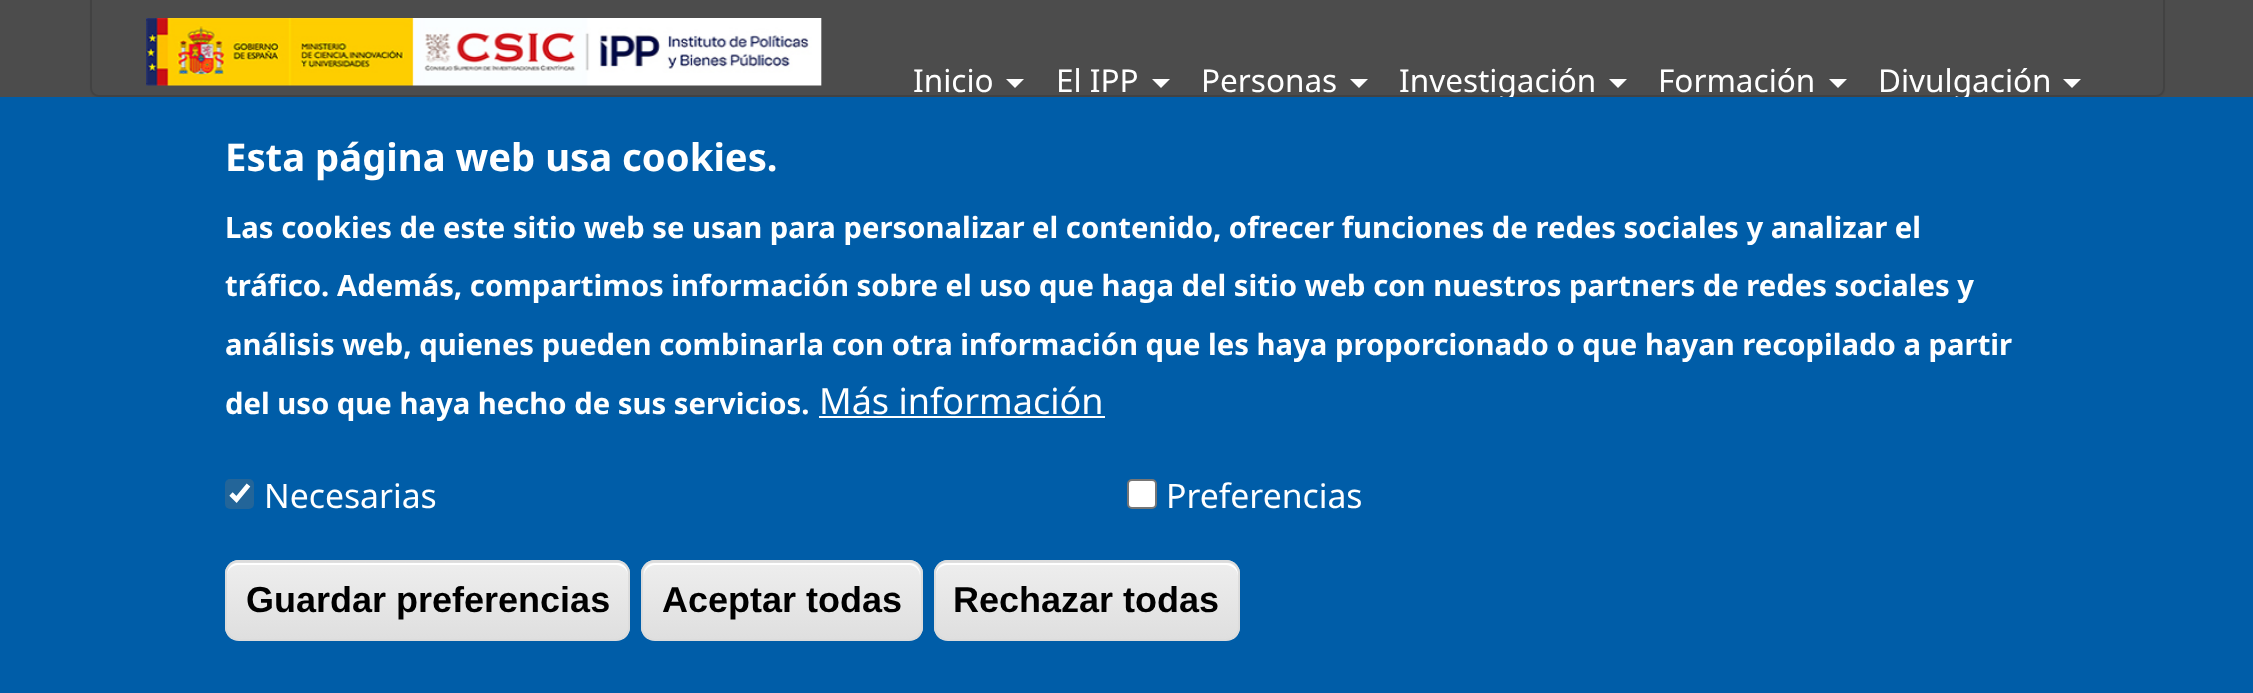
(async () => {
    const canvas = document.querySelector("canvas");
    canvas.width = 2253;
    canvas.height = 693;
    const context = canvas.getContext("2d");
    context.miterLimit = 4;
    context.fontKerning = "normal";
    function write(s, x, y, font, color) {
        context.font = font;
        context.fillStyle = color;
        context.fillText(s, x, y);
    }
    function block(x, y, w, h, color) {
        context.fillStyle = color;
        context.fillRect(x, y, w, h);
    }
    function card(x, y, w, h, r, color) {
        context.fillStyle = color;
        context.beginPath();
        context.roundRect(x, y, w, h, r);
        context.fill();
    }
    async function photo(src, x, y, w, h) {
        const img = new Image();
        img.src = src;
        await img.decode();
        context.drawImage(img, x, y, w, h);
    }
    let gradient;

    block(0, 0, 2253, 693, "rgb(255, 255, 255)");
    context.fillStyle = "rgba(0, 0, 0, 0.05)";
    context.filter = "blur(1px)";
    context.beginPath();
    context.roundRect(90, -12, 2075, 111, 9);
    context.fill();
    context.filter = "none";
    context.fillStyle = "rgb(255, 255, 255)";
    context.beginPath();
    context.roundRect(91, -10, 2073, 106, 8);
    context.fill();
    context.strokeStyle = "rgb(221, 221, 221)";
    context.lineWidth = 2;
    context.stroke();
    block(0, 0, 2253, 97, "rgba(0, 0, 0, 0.7)");
    await photo("media/1.png", 146, 18, 676, 68);
    write("Inicio", 913, 92, "31.5px Noto Sans", "rgb(255, 255, 255)");
    context.beginPath();
    context.moveTo(1006, 79);
    context.lineTo(1024, 79);
    context.lineTo(1015, 88);
    context.closePath();
    context.fill();
    write("El IPP", 1056, 92, "31.5px Noto Sans", "rgb(255, 255, 255)");
    context.beginPath();
    context.moveTo(1152, 79);
    context.lineTo(1170, 79);
    context.lineTo(1161, 88);
    context.closePath();
    context.fill();
    write("Personas", 1201, 92, "31.5px Noto Sans", "rgb(255, 255, 255)");
    context.beginPath();
    context.moveTo(1350, 79);
    context.lineTo(1368, 79);
    context.lineTo(1359, 88);
    context.closePath();
    context.fill();
    write("Investigación", 1399, 92, "31.5px Noto Sans", "rgb(255, 255, 255)");
    context.beginPath();
    context.moveTo(1609, 79);
    context.lineTo(1627, 79);
    context.lineTo(1618, 88);
    context.closePath();
    context.fill();
    write("Formación", 1658, 92, "31.5px Noto Sans", "rgb(255, 255, 255)");
    context.beginPath();
    context.moveTo(1829, 79);
    context.lineTo(1847, 79);
    context.lineTo(1838, 88);
    context.closePath();
    context.fill();
    write("Divulgación", 1878, 92, "31.5px Noto Sans", "rgb(255, 255, 255)");
    context.beginPath();
    context.moveTo(2063, 79);
    context.lineTo(2081, 79);
    context.lineTo(2072, 88);
    context.closePath();
    context.fill();
    block(0, 97, 2253, 596, "rgb(0, 93, 168)");
    write("Esta página web usa cookies.", 225, 171, "bold 38.25px Noto Sans", "rgb(255, 255, 255)");
    write("Las cookies de este sitio web se usan para personalizar el contenido, ofrecer funciones de redes sociales y analizar el", 225, 238, "bold 29.25px Noto Sans", "rgb(255, 255, 255)");
    write("tráfico. Además, compartimos información sobre el uso que haga del sitio web con nuestros partners de redes sociales y", 225, 296, "bold 29.25px Noto Sans", "rgb(255, 255, 255)");
    write("análisis web, quienes pueden combinarla con otra información que les haya proporcionado o que hayan recopilado a partir", 225, 355, "bold 29.25px Noto Sans", "rgb(255, 255, 255)");
    write("del uso que haya hecho de sus servicios.", 225, 414, "bold 29.25px Noto Sans", "rgb(255, 255, 255)");
    write("Más información", 819, 414, "36px Noto Sans", "rgb(255, 255, 255)");
    block(819, 416, 286, 2, "rgb(255, 255, 255)");
    card(225, 479, 29, 30, 5, "rgb(35, 101, 153)");
    context.beginPath();
    context.moveTo(231, 494);
    context.lineTo(236.5, 499.5);
    context.lineTo(248.5, 485);
    context.strokeStyle = "rgb(255, 255, 255)";
    context.lineWidth = 4.7;
    context.stroke();
    write("Necesarias", 264, 508, "33.75px Noto Sans", "rgb(255, 255, 255)");
    context.beginPath();
    context.roundRect(1128, 480, 28, 28, 4);
    context.fill();
    context.strokeStyle = "rgb(118, 118, 118)";
    context.lineWidth = 2;
    context.stroke();
    write("Preferencias", 1166, 508, "33.75px Noto Sans", "rgb(255, 255, 255)");
    context.save();
    context.beginPath();
    context.roundRect(225, 560, 405, 81, 14);
    context.clip();
    gradient = context.createLinearGradient(428, 486, 428, 563);
    gradient.addColorStop(0.05, "rgb(237, 237, 237)");
    gradient.addColorStop(1, "rgb(223, 223, 223)");
    context.fillStyle = gradient;
    context.fillRect(225, 560, 405, 3);
    gradient = context.createLinearGradient(428, 563, 428, 639);
    gradient.addColorStop(0.05, "rgb(237, 237, 237)");
    gradient.addColorStop(1, "rgb(223, 223, 223)");
    context.fillStyle = gradient;
    context.fillRect(225, 563, 405, 76);
    context.restore();
    context.beginPath();
    context.moveTo(238, 565);
    context.lineTo(616, 565);
    context.bezierCurveTo(623, 565, 628, 570, 628, 576);
    context.bezierCurveTo(628, 570, 626, 565, 619, 563);
    context.lineTo(236, 563);
    context.bezierCurveTo(229, 565, 227, 570, 227, 576);
    context.bezierCurveTo(227, 570, 232, 565, 238, 565);
    context.closePath();
    context.fill();
    context.beginPath();
    context.roundRect(226, 561, 403, 79, 13);
    context.strokeStyle = "rgb(220, 220, 220)";
    context.stroke();
    write("Guardar preferencias", 246, 612, "bold 36px Liberation Sans", "rgb(0, 0, 0)");
    context.save();
    context.beginPath();
    context.roundRect(641, 560, 282, 81, 14);
    context.clip();
    gradient = context.createLinearGradient(782, 486, 782, 563);
    gradient.addColorStop(0.05, "rgb(237, 237, 237)");
    gradient.addColorStop(1, "rgb(223, 223, 223)");
    context.fillStyle = gradient;
    context.fillRect(641, 560, 282, 3);
    gradient = context.createLinearGradient(782, 563, 782, 639);
    gradient.addColorStop(0.05, "rgb(237, 237, 237)");
    gradient.addColorStop(1, "rgb(223, 223, 223)");
    context.fillStyle = gradient;
    context.fillRect(641, 563, 282, 76);
    context.restore();
    context.fillStyle = "rgb(255, 255, 255)";
    context.beginPath();
    context.moveTo(655, 565);
    context.lineTo(909, 565);
    context.bezierCurveTo(915, 565, 920, 570, 920, 576);
    context.lineTo(920, 574);
    context.bezierCurveTo(920, 568, 915, 563, 909, 563);
    context.lineTo(655, 563);
    context.bezierCurveTo(649, 563, 644, 568, 644, 574);
    context.lineTo(644, 576);
    context.bezierCurveTo(644, 570, 649, 565, 655, 565);
    context.closePath();
    context.fill();
    context.beginPath();
    context.roundRect(642, 561, 280, 79, 13);
    context.stroke();
    write("Aceptar todas", 662, 612, "bold 36px Liberation Sans", "rgb(0, 0, 0)");
    context.save();
    context.beginPath();
    context.roundRect(934, 560, 306, 81, 14);
    context.clip();
    gradient = context.createLinearGradient(1087, 486, 1087, 563);
    gradient.addColorStop(0.05, "rgb(237, 237, 237)");
    gradient.addColorStop(1, "rgb(223, 223, 223)");
    context.fillStyle = gradient;
    context.fillRect(934, 560, 306, 3);
    gradient = context.createLinearGradient(1087, 563, 1087, 639);
    gradient.addColorStop(0.05, "rgb(237, 237, 237)");
    gradient.addColorStop(1, "rgb(223, 223, 223)");
    context.fillStyle = gradient;
    context.fillRect(934, 563, 306, 76);
    context.restore();
    context.fillStyle = "rgb(255, 255, 255)";
    context.beginPath();
    context.moveTo(947, 565);
    context.lineTo(1226, 565);
    context.bezierCurveTo(1232, 565, 1238, 570, 1238, 576);
    context.lineTo(1238, 574);
    context.bezierCurveTo(1238, 568, 1233, 563, 1227, 563);
    context.lineTo(947, 563);
    context.bezierCurveTo(941, 563, 936, 568, 936, 574);
    context.lineTo(936, 576);
    context.bezierCurveTo(936, 570, 941, 565, 947, 565);
    context.closePath();
    context.fill();
    context.beginPath();
    context.roundRect(935, 561, 304, 79, 13);
    context.stroke();
    write("Rechazar todas", 953, 612, "bold 36px Liberation Sans", "rgb(0, 0, 0)");
})();
